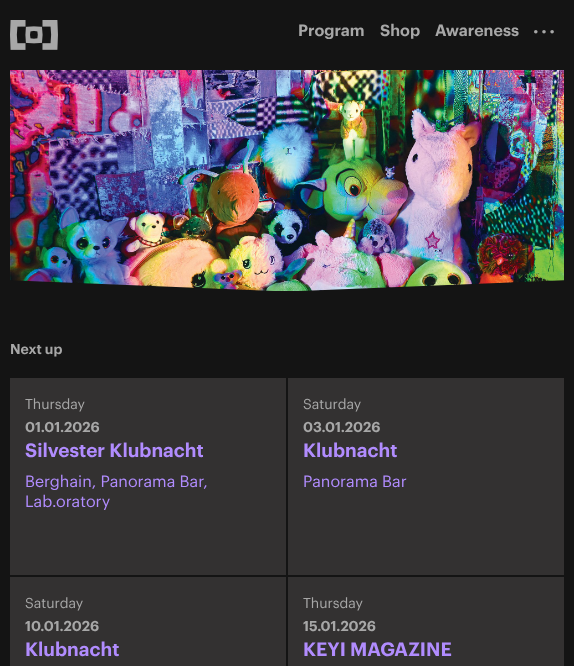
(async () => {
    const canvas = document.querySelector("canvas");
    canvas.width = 574;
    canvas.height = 666;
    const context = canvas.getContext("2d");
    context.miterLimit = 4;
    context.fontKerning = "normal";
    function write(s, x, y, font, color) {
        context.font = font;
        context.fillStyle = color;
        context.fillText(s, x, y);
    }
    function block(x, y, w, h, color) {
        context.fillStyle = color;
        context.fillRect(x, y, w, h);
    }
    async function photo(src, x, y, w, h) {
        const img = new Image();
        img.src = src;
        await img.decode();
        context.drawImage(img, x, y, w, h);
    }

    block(0, 0, 574, 666, "rgb(20, 20, 20)");
    await photo("media/1.png", 10, 20, 48, 30);
    write("Program", 298, 36, "600 16px Graphik", "rgb(167, 167, 167)");
    write("Shop", 380, 36, "600 16px Graphik", "rgb(167, 167, 167)");
    write("Awareness", 435, 36, "600 16px Graphik", "rgb(167, 167, 167)");
    context.beginPath();
    context.arc(535.8, 31.8, 1.8, 0, Math.PI * 2);
    context.fill();
    context.beginPath();
    context.arc(544, 31.8, 1.8, 0, Math.PI * 2);
    context.fill();
    context.beginPath();
    context.arc(552.1, 31.8, 1.8, 0, Math.PI * 2);
    context.fill();
    await photo("media/2.png", 10, 70, 554, 221);
    write("Next up", 10, 354, "600 14px Graphik", "rgb(167, 167, 167)");
    block(10, 378, 276, 197, "rgb(51, 49, 49)");
    write("Thursday", 25, 409, "14px Graphik", "rgb(167, 167, 167)");
    write("01.01.2026", 25, 432, "600 14px Graphik", "rgb(167, 167, 167)");
    write("Silvester Klubnacht", 25, 457, "600 19px Graphik", "rgb(177, 140, 254)");
    write("Berghain, Panorama Bar,", 25, 487, "16px Graphik", "rgb(177, 140, 254)");
    write("Lab.oratory", 25, 507, "16px Graphik", "rgb(177, 140, 254)");
    block(288, 378, 276, 197, "rgb(51, 49, 49)");
    write("Saturday", 303, 409, "14px Graphik", "rgb(167, 167, 167)");
    write("03.01.2026", 303, 432, "600 14px Graphik", "rgb(167, 167, 167)");
    write("Klubnacht", 303, 457, "600 19px Graphik", "rgb(177, 140, 254)");
    write("Panorama Bar", 303, 487, "16px Graphik", "rgb(177, 140, 254)");
    block(10, 577, 276, 89, "rgb(51, 49, 49)");
    write("Saturday", 25, 608, "14px Graphik", "rgb(167, 167, 167)");
    write("10.01.2026", 25, 631, "600 14px Graphik", "rgb(167, 167, 167)");
    write("Klubnacht", 25, 656, "600 19px Graphik", "rgb(177, 140, 254)");
    block(288, 577, 276, 89, "rgb(51, 49, 49)");
    write("Thursday", 303, 608, "14px Graphik", "rgb(167, 167, 167)");
    write("15.01.2026", 303, 631, "600 14px Graphik", "rgb(167, 167, 167)");
    write("KEYI MAGAZINE", 303, 656, "600 19px Graphik", "rgb(177, 140, 254)");
})();
